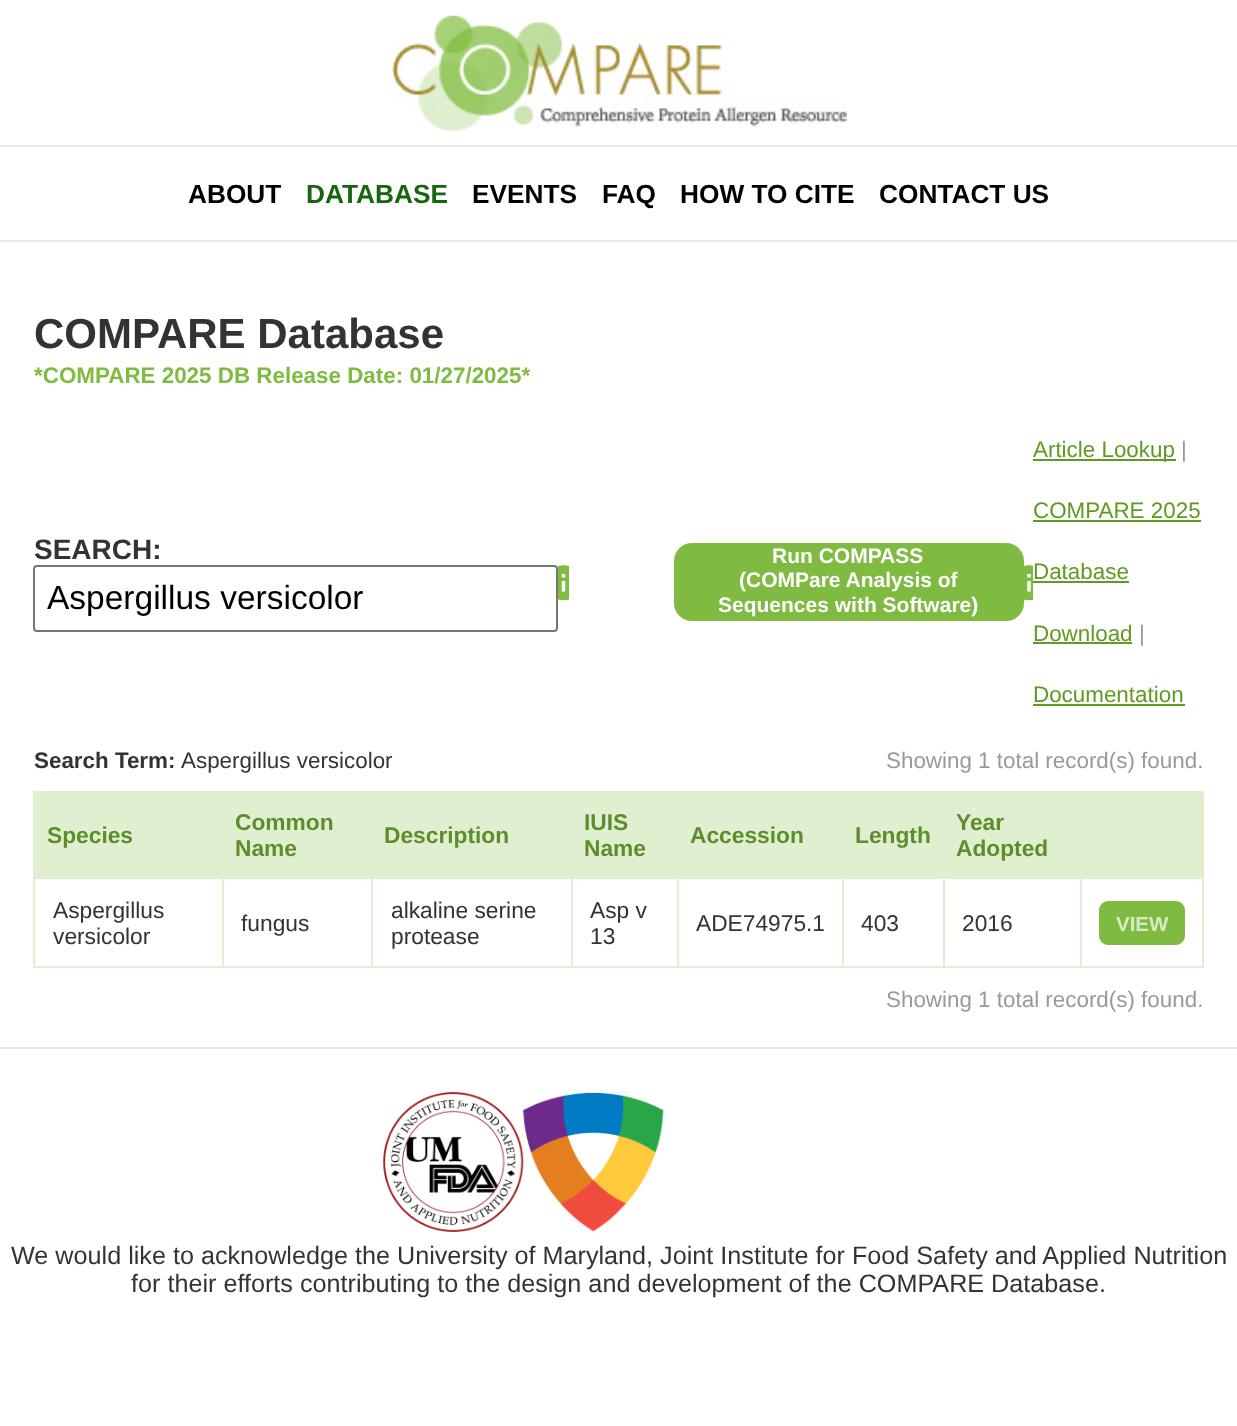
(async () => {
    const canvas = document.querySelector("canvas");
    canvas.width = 1237;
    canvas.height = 1426;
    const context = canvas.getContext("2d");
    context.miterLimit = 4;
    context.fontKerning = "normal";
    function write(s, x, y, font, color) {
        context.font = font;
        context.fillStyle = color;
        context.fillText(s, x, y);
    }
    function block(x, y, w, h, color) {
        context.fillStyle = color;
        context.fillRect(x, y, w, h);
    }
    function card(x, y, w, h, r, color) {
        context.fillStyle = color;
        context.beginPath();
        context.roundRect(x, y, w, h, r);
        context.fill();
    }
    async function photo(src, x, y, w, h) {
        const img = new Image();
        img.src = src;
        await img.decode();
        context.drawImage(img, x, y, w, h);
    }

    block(0, 0, 1237, 1426, "rgb(255, 255, 255)");
    await photo("media/1.png", 392, 15, 455, 117);
    block(0, 145, 1237, 2, "rgb(231, 231, 231)");
    block(0, 240, 1237, 2, "rgb(231, 231, 231)");
    write("ABOUT", 188, 203, "bold 26.25px Liberation Sans", "rgb(0, 0, 0)");
    write("DATABASE", 306, 203, "bold 26.25px Liberation Sans", "rgb(22, 102, 15)");
    write("EVENTS", 472, 203, "bold 26.25px Liberation Sans", "rgb(0, 0, 0)");
    write("FAQ", 602, 203, "bold 26.25px Liberation Sans", "rgb(0, 0, 0)");
    write("HOW TO CITE", 680, 203, "bold 26.25px Liberation Sans", "rgb(0, 0, 0)");
    write("CONTACT US", 879, 203, "bold 26.25px Liberation Sans", "rgb(0, 0, 0)");
    block(0, 1047, 1237, 2, "rgb(231, 231, 231)");
    write("COMPARE Database", 34, 348, "bold 42px Liberation Sans", "rgb(51, 51, 51)");
    write("*COMPARE 2025 DB Release Date: 01/27/2025*", 34, 383, "bold 22.4px Liberation Sans", "rgb(128, 187, 65)");
    write("SEARCH:", 34, 559, "bold 28px Liberation Sans", "rgb(51, 51, 51)");
    context.beginPath();
    context.roundRect(34, 566, 523, 65, 3);
    context.strokeStyle = "rgb(118, 118, 118)";
    context.lineWidth = 2;
    context.stroke();
    write("Aspergillus versicolor", 47, 609, "33.5px Liberation Sans", "rgb(0, 0, 0)");
    await photo("media/2.png", 558, 565, 11, 36);
    card(674, 543, 350, 78, 18, "rgb(128, 187, 65)");
    write("Run COMPASS", 772, 563, "bold 21px Liberation Sans", "rgb(255, 255, 255)");
    write("(COMPare Analysis of", 739, 587, "bold 21px Liberation Sans", "rgb(255, 255, 255)");
    write("Sequences with Software)", 718, 612, "bold 21px Liberation Sans", "rgb(255, 255, 255)");
    await photo("media/3.png", 1024, 565, 9, 36);
    block(1033, 459, 143, 2, "rgb(96, 154, 34)");
    write("Article Lookup", 1033, 457, "22.4px Liberation Sans", "rgb(96, 154, 34)");
    write("|", 1181, 457, "22.4px Liberation Sans", "rgb(153, 153, 153)");
    write("COMPARE 2025", 1033, 518, "22.4px Liberation Sans", "rgb(96, 154, 34)");
    block(1033, 520, 168, 2, "rgb(96, 154, 34)");
    write("Database", 1033, 579, "22.4px Liberation Sans", "rgb(96, 154, 34)");
    block(1033, 581, 96, 2, "rgb(96, 154, 34)");
    write("Download", 1033, 641, "22.4px Liberation Sans", "rgb(96, 154, 34)");
    block(1033, 642, 99, 2, "rgb(96, 154, 34)");
    write("|", 1139, 641, "22.4px Liberation Sans", "rgb(153, 153, 153)");
    write("Documentation", 1033, 702, "22.4px Liberation Sans", "rgb(96, 154, 34)");
    block(1033, 704, 152, 2, "rgb(96, 154, 34)");
    write("Search Term:", 34, 768, "bold 22.4px Liberation Sans", "rgb(51, 51, 51)");
    write("Aspergillus versicolor", 181, 768, "22.4px Liberation Sans", "rgb(51, 51, 51)");
    write("Showing 1 total record(s) found.", 886, 768, "22.4px Liberation Sans", "rgb(153, 153, 153)");
    block(33, 791, 1171, 2, "rgb(224, 239, 208)");
    block(1202, 791, 2, 177, "rgb(224, 239, 208)");
    block(33, 966, 1171, 2, "rgb(224, 239, 208)");
    block(33, 791, 2, 177, "rgb(224, 239, 208)");
    block(35, 793, 1167, 86, "rgb(224, 239, 208)");
    write("Species", 47, 843, "bold 22.75px Liberation Sans", "rgb(93, 141, 44)");
    write("Common", 235, 830, "bold 22.75px Liberation Sans", "rgb(93, 141, 44)");
    write("Name", 235, 856, "bold 22.75px Liberation Sans", "rgb(93, 141, 44)");
    write("Description", 384, 843, "bold 22.75px Liberation Sans", "rgb(93, 141, 44)");
    write("IUIS", 584, 830, "bold 22.75px Liberation Sans", "rgb(93, 141, 44)");
    write("Name", 584, 856, "bold 22.75px Liberation Sans", "rgb(93, 141, 44)");
    write("Accession", 690, 843, "bold 22.75px Liberation Sans", "rgb(93, 141, 44)");
    write("Length", 855, 843, "bold 22.75px Liberation Sans", "rgb(93, 141, 44)");
    write("Year", 956, 830, "bold 22.75px Liberation Sans", "rgb(93, 141, 44)");
    write("Adopted", 956, 856, "bold 22.75px Liberation Sans", "rgb(93, 141, 44)");
    write("Aspergillus", 53, 918, "22.75px Liberation Sans", "rgb(51, 51, 51)");
    write("versicolor", 53, 944, "22.75px Liberation Sans", "rgb(51, 51, 51)");
    block(222, 877, 2, 91, "rgb(224, 239, 208)");
    write("fungus", 241, 931, "22.75px Liberation Sans", "rgb(51, 51, 51)");
    block(371, 877, 2, 91, "rgb(224, 239, 208)");
    write("alkaline serine", 391, 918, "22.75px Liberation Sans", "rgb(51, 51, 51)");
    write("protease", 391, 944, "22.75px Liberation Sans", "rgb(51, 51, 51)");
    block(571, 877, 2, 91, "rgb(224, 239, 208)");
    write("Asp v", 590, 918, "22.75px Liberation Sans", "rgb(51, 51, 51)");
    write("13", 590, 944, "22.75px Liberation Sans", "rgb(51, 51, 51)");
    block(677, 877, 2, 91, "rgb(224, 239, 208)");
    write("ADE74975.1", 696, 931, "22.75px Liberation Sans", "rgb(51, 51, 51)");
    block(842, 877, 2, 91, "rgb(224, 239, 208)");
    write("403", 861, 931, "22.75px Liberation Sans", "rgb(51, 51, 51)");
    block(943, 877, 2, 91, "rgb(224, 239, 208)");
    write("2016", 962, 931, "22.75px Liberation Sans", "rgb(51, 51, 51)");
    block(1080, 877, 2, 91, "rgb(224, 239, 208)");
    card(1099, 901, 86, 44, 9, "rgb(128, 187, 65)");
    write("VIEW", 1116, 931, "bold 20.5px Liberation Sans", "rgb(217, 235, 198)");
    write("Showing 1 total record(s) found.", 886, 1007, "22.4px Liberation Sans", "rgb(153, 153, 153)");
    await photo("media/4.png", 383, 1092, 141, 140);
    await photo("media/5.png", 523, 1092, 141, 140);
    write("We would like to acknowledge the University of Maryland, Joint Institute for Food Safety and Applied Nutrition", 11, 1264, "25.2px Liberation Sans", "rgb(51, 51, 51)");
    write("for their efforts contributing to the design and development of the COMPARE Database.", 131, 1292, "25.2px Liberation Sans", "rgb(51, 51, 51)");
})();
